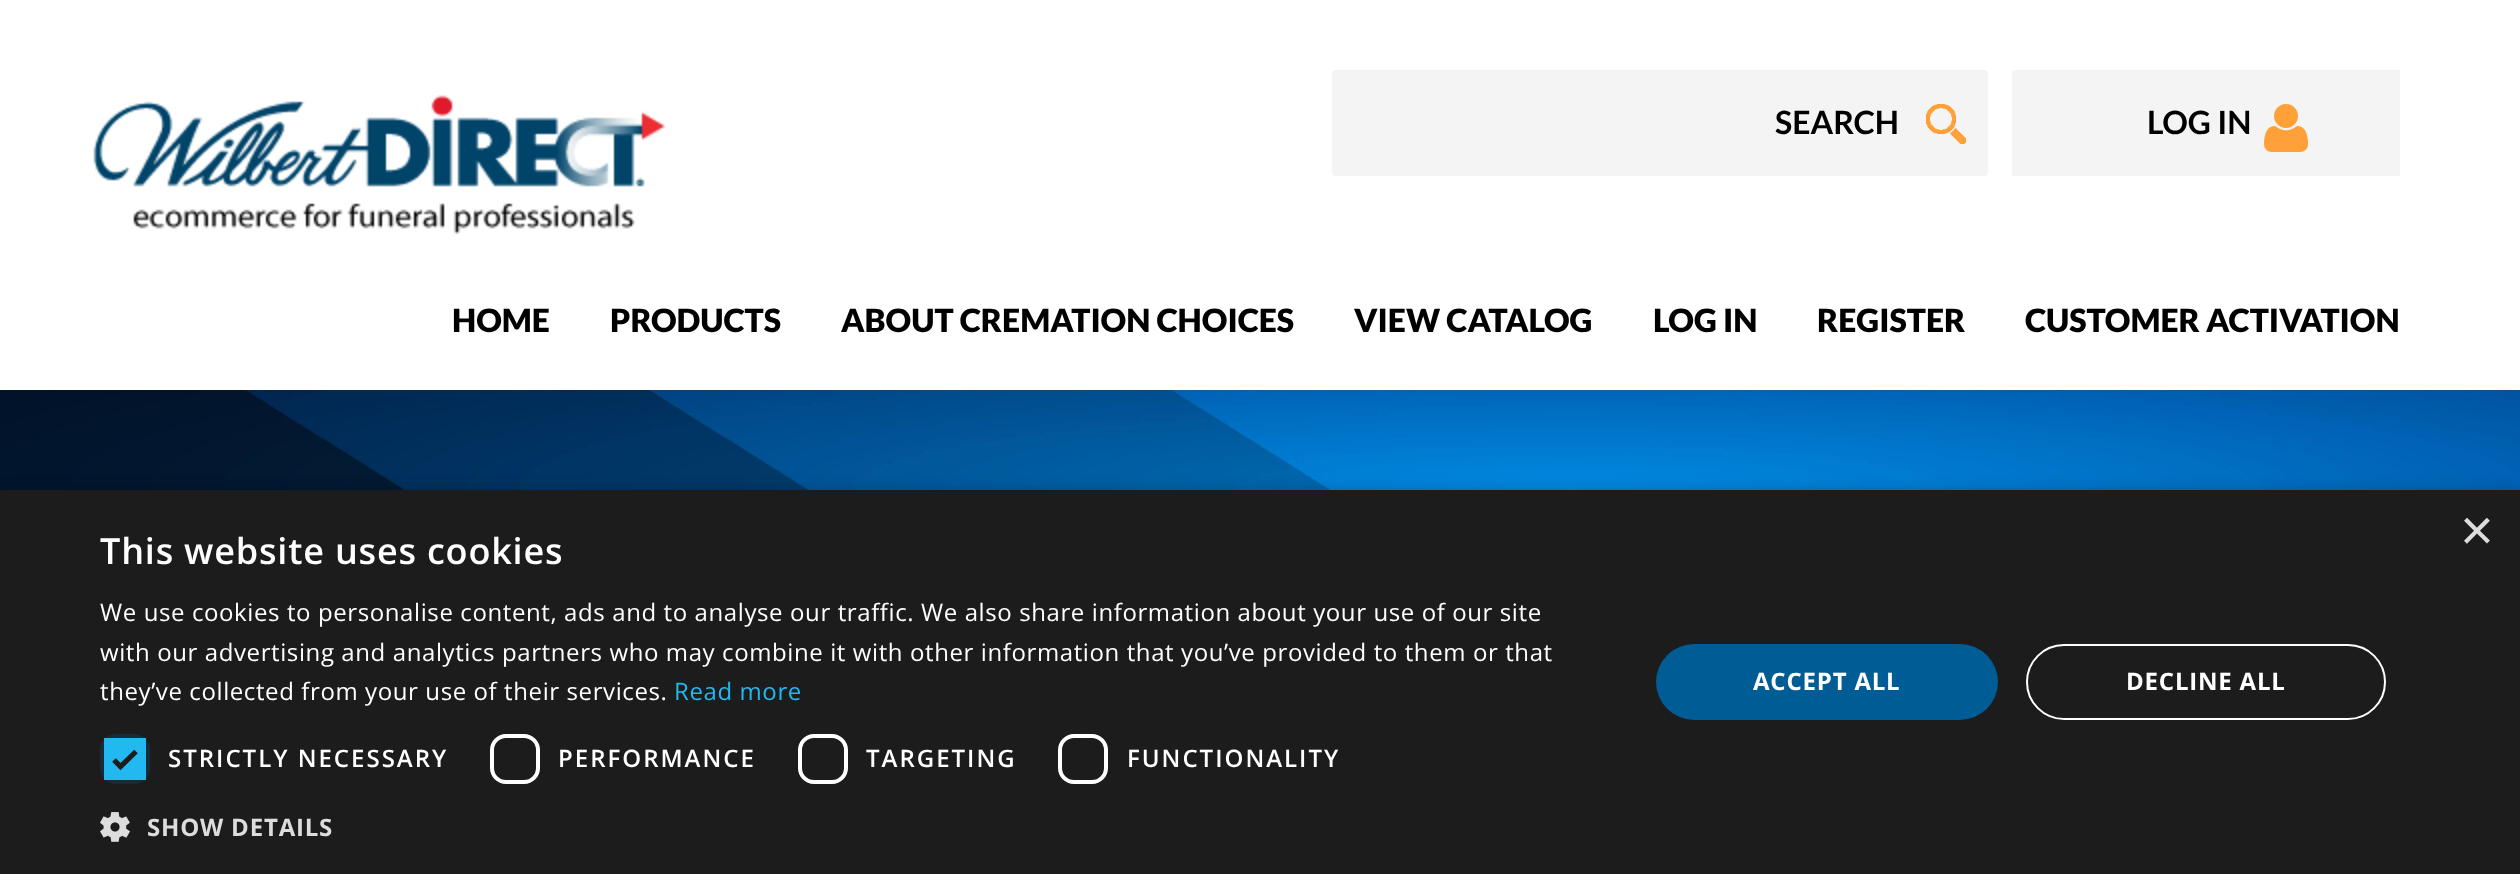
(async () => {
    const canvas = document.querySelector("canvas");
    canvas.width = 2520;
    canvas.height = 874;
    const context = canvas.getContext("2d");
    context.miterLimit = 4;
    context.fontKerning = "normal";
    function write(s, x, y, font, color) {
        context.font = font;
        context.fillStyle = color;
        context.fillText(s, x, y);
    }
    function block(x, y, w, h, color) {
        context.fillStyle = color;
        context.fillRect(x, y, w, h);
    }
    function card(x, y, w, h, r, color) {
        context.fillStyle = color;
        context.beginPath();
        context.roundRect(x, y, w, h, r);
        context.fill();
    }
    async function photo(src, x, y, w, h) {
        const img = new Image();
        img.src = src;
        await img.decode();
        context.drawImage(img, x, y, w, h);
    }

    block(0, 0, 2520, 874, "rgb(255, 255, 255)");
    await photo("media/1.png", 93, 95, 573, 140);
    card(1332, 70, 656, 106, 4, "rgb(244, 244, 244)");
    write("SEARCH", 1775, 134, "bold 32px Lato", "rgb(0, 0, 0)");
    await photo("media/2.png", 1926, 104, 40, 40);
    block(2012, 70, 388, 106, "rgb(244, 244, 244)");
    write("LOG IN", 2147, 134, "bold 32px Lato", "rgb(0, 0, 0)");
    await photo("media/3.png", 2264, 104, 44, 48);
    write("HOME", 452, 332, "900 32px Lato", "rgb(0, 0, 0)");
    write("PRODUCTS", 610, 332, "900 32px Lato", "rgb(0, 0, 0)");
    write("ABOUT CREMATION CHOICES", 841, 332, "900 32px Lato", "rgb(0, 0, 0)");
    write("VIEW CATALOG", 1354, 332, "900 32px Lato", "rgb(0, 0, 0)");
    write("LOG IN", 1653, 332, "900 32px Lato", "rgb(0, 0, 0)");
    write("REGISTER", 1817, 332, "900 32px Lato", "rgb(0, 0, 0)");
    write("CUSTOMER ACTIVATION", 2025, 332, "900 32px Lato", "rgb(0, 0, 0)");
    await photo("media/4.png", 0, 390, 2520, 100);
    context.fillStyle = "rgba(0, 0, 0, 0.35)";
    context.filter = "blur(8px)";
    context.beginPath();
    context.rect(2, 494, 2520, 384);
    context.fill();
    context.filter = "none";
    block(0, 490, 2520, 384, "rgb(28, 28, 28)");
    write("×", 2460, 550, "58px Liberation Sans", "rgb(221, 221, 221)");
    context.letterSpacing = "0.8px";
    write("This website uses cookies", 100, 564, "600 36px Open Sans", "rgb(255, 255, 255)");
    context.letterSpacing = "0.6px";
    write("We use cookies to personalise content, ads and to analyse our traffic. We also share information about your use of our site", 100, 621, "24px Open Sans", "rgb(255, 255, 255)");
    write("with our advertising and analytics partners who may combine it with other information that you’ve provided to them or that", 100, 661, "24px Open Sans", "rgb(255, 255, 255)");
    write("they’ve collected from your use of their services.", 100, 700, "24px Open Sans", "rgb(255, 255, 255)");
    write("Read more", 674, 700, "24px Open Sans", "rgb(34, 184, 240)");
    card(100, 734, 50, 50, 16, "rgb(21, 45, 59)");
    block(104, 738, 42, 42, "rgb(34, 184, 240)");
    context.beginPath();
    context.moveTo(114, 760);
    context.lineTo(120.5, 766.5);
    context.lineTo(136, 751.5);
    context.strokeStyle = "rgb(28, 28, 28)";
    context.lineWidth = 5.2;
    context.stroke();
    context.letterSpacing = "2px";
    write("STRICTLY NECESSARY", 168, 767, "600 24px Open Sans", "rgb(255, 255, 255)");
    context.beginPath();
    context.roundRect(492, 736, 46, 46, 14);
    context.strokeStyle = "rgb(255, 255, 255)";
    context.lineWidth = 4;
    context.stroke();
    write("PERFORMANCE", 558, 767, "600 24px Open Sans", "rgb(255, 255, 255)");
    context.beginPath();
    context.roundRect(800, 736, 46, 46, 14);
    context.stroke();
    write("TARGETING", 866, 767, "600 24px Open Sans", "rgb(255, 255, 255)");
    context.beginPath();
    context.roundRect(1060, 736, 46, 46, 14);
    context.stroke();
    write("FUNCTIONALITY", 1127, 767, "600 24px Open Sans", "rgb(255, 255, 255)");
    await photo("media/5.png", 100, 812, 30, 30);
    context.letterSpacing = "0.8px";
    write("SHOW DETAILS", 147, 836, "bold 24px Open Sans", "rgb(221, 221, 221)");
    card(1656, 644, 342, 76, 38, "rgb(0, 92, 148)");
    write("ACCEPT ALL", 1753, 690, "bold 24px Open Sans", "rgb(255, 255, 255)");
    context.beginPath();
    context.roundRect(2027, 645, 358, 74, 37);
    context.lineWidth = 2;
    context.stroke();
    write("DECLINE ALL", 2126, 690, "bold 24px Open Sans", "rgb(255, 255, 255)");
})();
